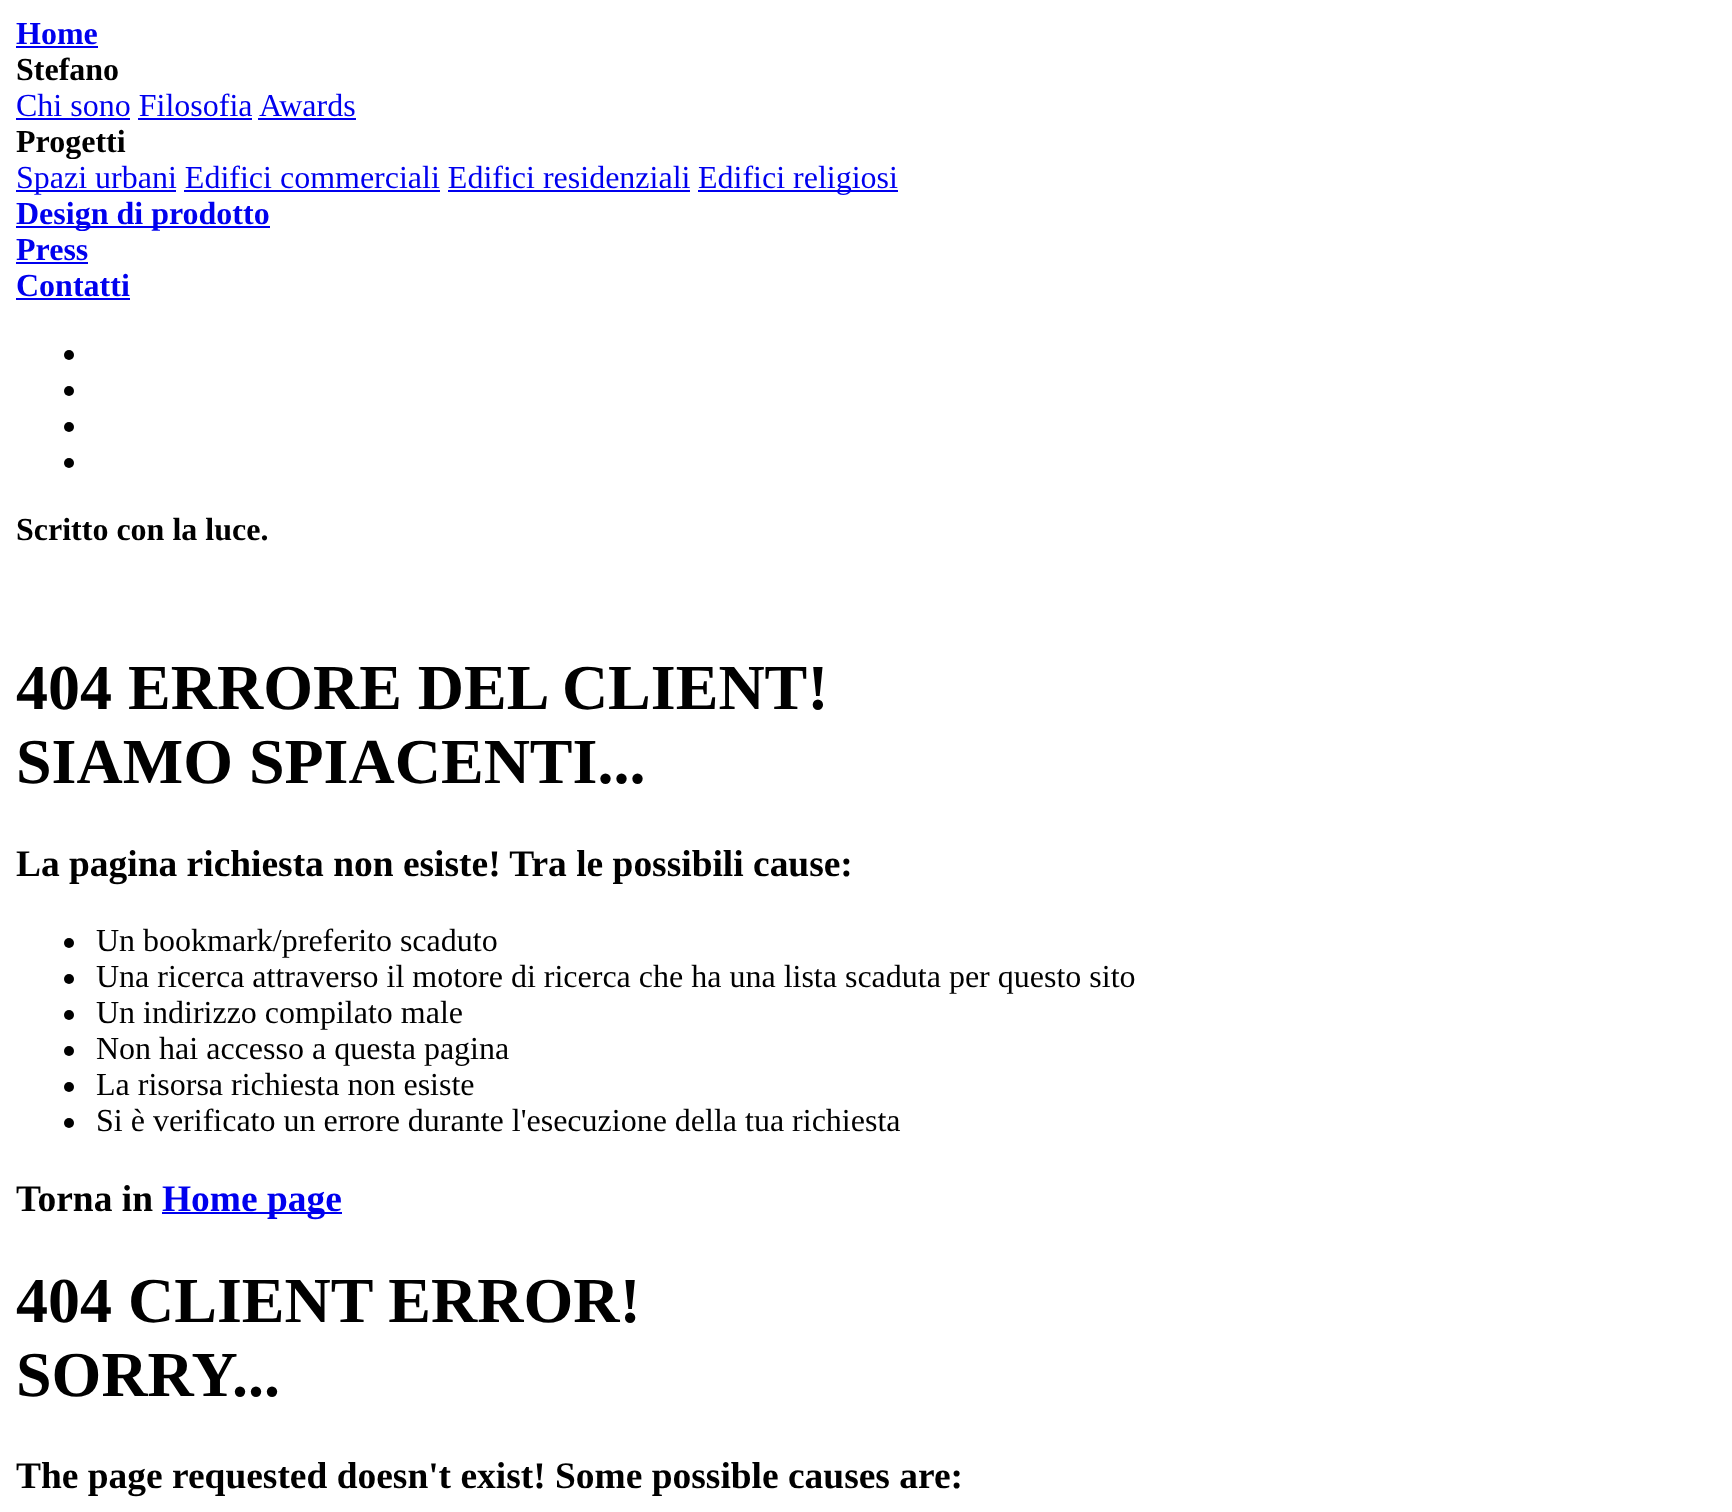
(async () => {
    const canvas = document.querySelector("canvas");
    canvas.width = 1732;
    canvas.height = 1512;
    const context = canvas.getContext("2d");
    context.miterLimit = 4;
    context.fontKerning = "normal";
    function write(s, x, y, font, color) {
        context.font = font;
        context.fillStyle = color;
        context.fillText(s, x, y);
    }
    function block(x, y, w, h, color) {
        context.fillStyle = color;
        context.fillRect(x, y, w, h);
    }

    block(0, 0, 1732, 1512, "rgb(255, 255, 255)");
    write("Home", 16, 44, "bold 32px Liberation Serif", "rgb(0, 0, 238)");
    block(16, 46, 82, 2, "rgb(0, 0, 238)");
    write("Stefano", 16, 80, "bold 32px Liberation Serif", "rgb(0, 0, 0)");
    write("Chi sono Filosofia", 16, 116, "32px Liberation Serif", "rgb(0, 0, 238)");
    block(16, 118, 114, 2, "rgb(0, 0, 238)");
    write("Awards", 259, 116, "32px Liberation Serif", "rgb(0, 0, 238)");
    block(258, 118, 98, 2, "rgb(0, 0, 238)");
    block(138, 118, 114, 2, "rgb(0, 0, 238)");
    write("Progetti", 16, 152, "bold 32px Liberation Serif", "rgb(0, 0, 0)");
    block(16, 190, 160, 2, "rgb(0, 0, 238)");
    write("Spazi urbani Edifici commerciali Edifici residenziali", 16, 188, "32px Liberation Serif", "rgb(0, 0, 238)");
    block(698, 190, 200, 2, "rgb(0, 0, 238)");
    write("Edifici religiosi", 698, 188, "32px Liberation Serif", "rgb(0, 0, 238)");
    block(184, 190, 256, 2, "rgb(0, 0, 238)");
    block(448, 190, 242, 2, "rgb(0, 0, 238)");
    block(16, 226, 254, 2, "rgb(0, 0, 238)");
    write("Design di prodotto", 16, 224, "bold 32px Liberation Serif", "rgb(0, 0, 238)");
    write("Press", 16, 260, "bold 32px Liberation Serif", "rgb(0, 0, 238)");
    block(16, 262, 72, 2, "rgb(0, 0, 238)");
    write("Contatti", 16, 296, "bold 32px Liberation Serif", "rgb(0, 0, 238)");
    block(16, 298, 114, 2, "rgb(0, 0, 238)");
    context.fillStyle = "rgb(0, 0, 0)";
    context.beginPath();
    context.arc(69, 355, 5, 0, Math.PI * 2);
    context.fill();
    context.beginPath();
    context.arc(69, 391, 5, 0, Math.PI * 2);
    context.fill();
    context.beginPath();
    context.arc(69, 427, 5, 0, Math.PI * 2);
    context.fill();
    context.beginPath();
    context.arc(69, 463, 5, 0, Math.PI * 2);
    context.fill();
    write("Scritto con la luce.", 16, 540, "bold 32px Liberation Serif", "rgb(0, 0, 0)");
    write("404 ERRORE DEL CLIENT!", 16, 709, "bold 64px Liberation Serif", "rgb(0, 0, 0)");
    write("SIAMO SPIACENTI...", 16, 783, "bold 64px Liberation Serif", "rgb(0, 0, 0)");
    write("La pagina richiesta non esiste! Tra le possibili cause:", 16, 876, "bold 37.45px Liberation Serif", "rgb(0, 0, 0)");
    context.beginPath();
    context.arc(69, 943, 5, 0, Math.PI * 2);
    context.fill();
    write("Un bookmark/preferito scaduto", 96, 951, "32px Liberation Serif", "rgb(0, 0, 0)");
    context.beginPath();
    context.arc(69, 979, 5, 0, Math.PI * 2);
    context.fill();
    write("Una ricerca attraverso il motore di ricerca che ha una lista scaduta per questo sito", 96, 987, "32px Liberation Serif", "rgb(0, 0, 0)");
    context.beginPath();
    context.arc(69, 1015, 5, 0, Math.PI * 2);
    context.fill();
    write("Un indirizzo compilato male", 96, 1023, "32px Liberation Serif", "rgb(0, 0, 0)");
    context.beginPath();
    context.arc(69, 1051, 5, 0, Math.PI * 2);
    context.fill();
    write("Non hai accesso a questa pagina", 96, 1059, "32px Liberation Serif", "rgb(0, 0, 0)");
    context.beginPath();
    context.arc(69, 1087, 5, 0, Math.PI * 2);
    context.fill();
    write("La risorsa richiesta non esiste", 96, 1095, "32px Liberation Serif", "rgb(0, 0, 0)");
    context.beginPath();
    context.arc(69, 1123, 5, 0, Math.PI * 2);
    context.fill();
    write("Si è verificato un errore durante l'esecuzione della tua richiesta", 96, 1131, "32px Liberation Serif", "rgb(0, 0, 0)");
    write("Torna in", 16, 1211, "bold 37.45px Liberation Serif", "rgb(0, 0, 0)");
    block(162, 1212, 180, 2, "rgb(0, 0, 238)");
    write("Home page", 162, 1211, "bold 37.45px Liberation Serif", "rgb(0, 0, 238)");
    write("404 CLIENT ERROR!", 16, 1322, "bold 64px Liberation Serif", "rgb(0, 0, 0)");
    write("SORRY...", 16, 1396, "bold 64px Liberation Serif", "rgb(0, 0, 0)");
    write("The page requested doesn't exist! Some possible causes are:", 16, 1488, "bold 37.45px Liberation Serif", "rgb(0, 0, 0)");
})();
